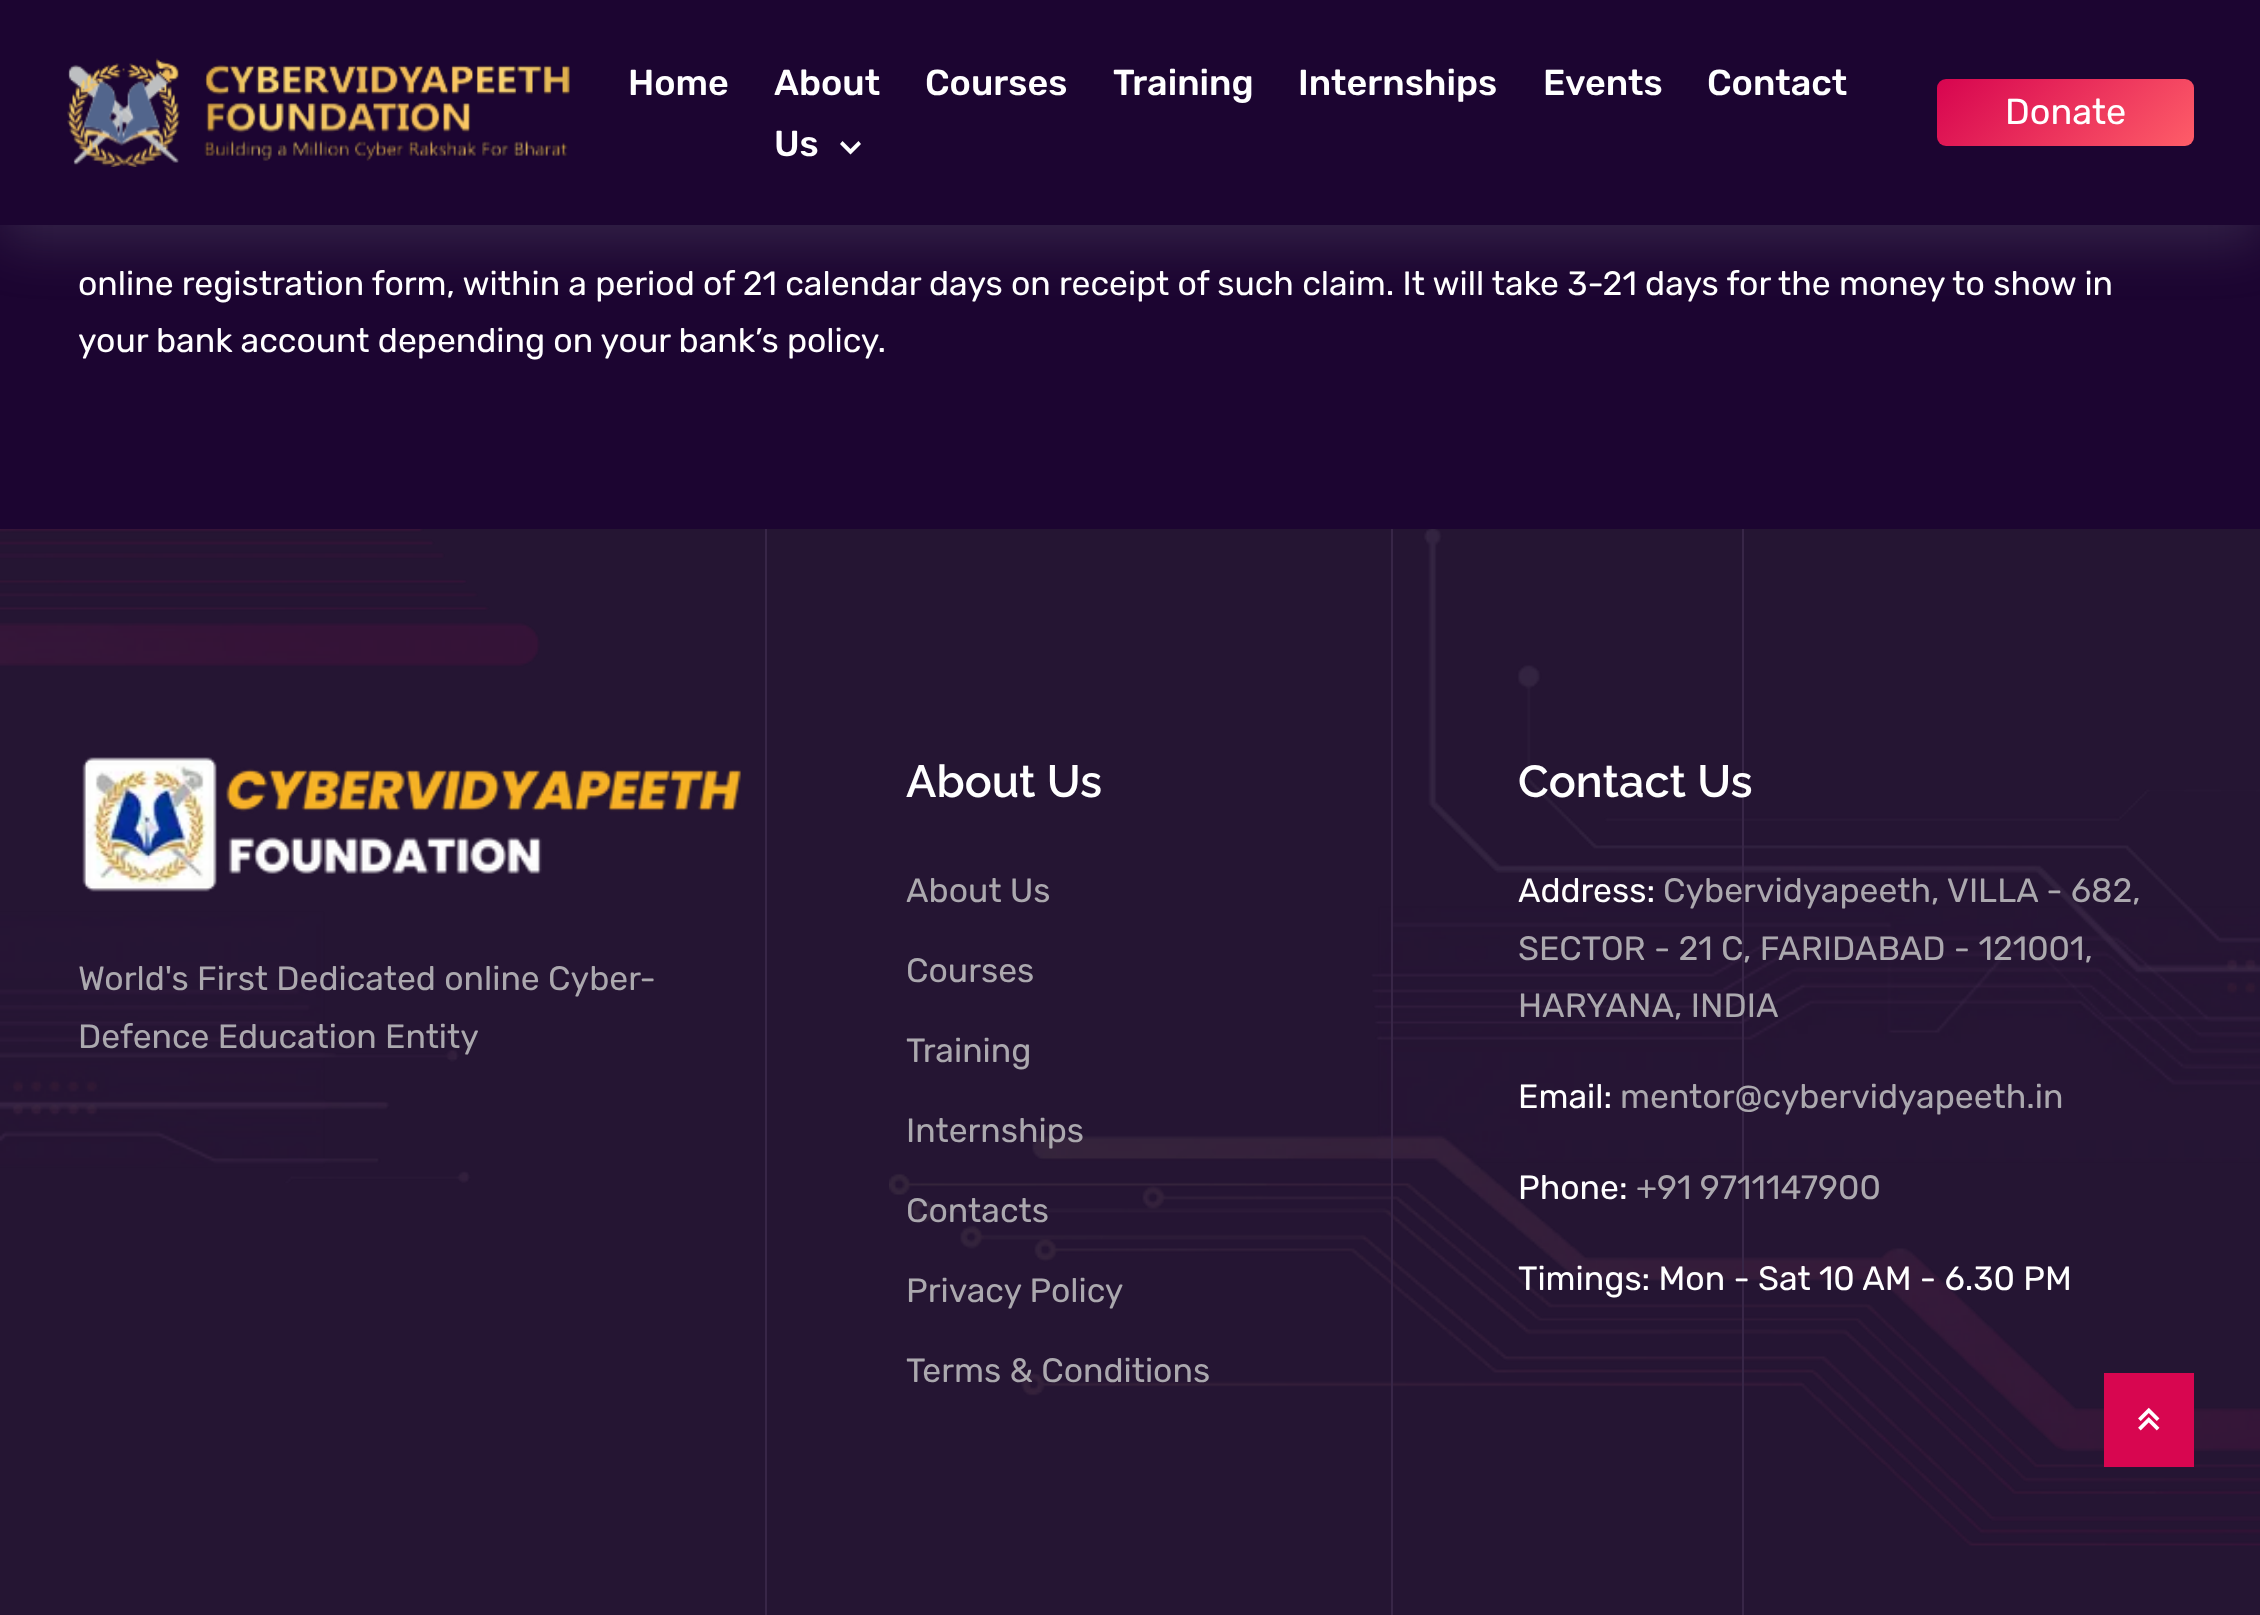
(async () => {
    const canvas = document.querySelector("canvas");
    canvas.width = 2260;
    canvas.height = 1615;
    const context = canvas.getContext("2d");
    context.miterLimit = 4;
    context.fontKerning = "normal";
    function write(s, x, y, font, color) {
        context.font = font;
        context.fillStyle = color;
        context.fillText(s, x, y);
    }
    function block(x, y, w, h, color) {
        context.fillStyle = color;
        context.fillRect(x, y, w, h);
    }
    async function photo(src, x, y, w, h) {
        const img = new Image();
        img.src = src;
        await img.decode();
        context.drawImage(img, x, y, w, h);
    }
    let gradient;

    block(0, 0, 2260, 1615, "rgb(28, 5, 49)");
    context.fillStyle = "rgba(149, 157, 165, 0.2)";
    context.filter = "blur(27px)";
    context.beginPath();
    context.rect(0, 18, 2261, 225);
    context.fill();
    context.filter = "none";
    block(0, 0, 2260, 225, "rgb(28, 5, 49)");
    await photo("media/1.png", 67, 58, 503, 109);
    write("Home", 628, 95, "500 36px Rubik", "rgb(255, 255, 255)");
    write("About", 774, 95, "500 36px Rubik", "rgb(255, 255, 255)");
    write("Us", 774, 156, "500 36px Rubik", "rgb(255, 255, 255)");
    context.beginPath();
    context.moveTo(858.5, 141);
    context.lineTo(850.5, 149);
    context.lineTo(842.5, 141);
    context.lineTo(840, 144);
    context.lineTo(850.5, 154.5);
    context.lineTo(861, 144);
    context.closePath();
    context.fill();
    write("Courses", 925, 95, "500 36px Rubik", "rgb(255, 255, 255)");
    write("Training", 1113, 95, "500 36px Rubik", "rgb(255, 255, 255)");
    write("Internships", 1298, 95, "500 36px Rubik", "rgb(255, 255, 255)");
    write("Events", 1543, 95, "500 36px Rubik", "rgb(255, 255, 255)");
    write("Contact", 1707, 95, "500 36px Rubik", "rgb(255, 255, 255)");
    gradient = context.createLinearGradient(1987, 31, 2144, 194);
    gradient.addColorStop(0.02, "rgb(216, 6, 80)");
    gradient.addColorStop(1, "rgb(254, 93, 104)");
    context.fillStyle = gradient;
    context.beginPath();
    context.roundRect(1937, 79, 257, 67, 9);
    context.fill();
    write("Donate", 2005, 124, "36px Rubik", "rgb(255, 255, 255)");
    write("online registration form, within a period of 21 calendar days on receipt of such claim. It will take 3-21 days for the money to show in", 78, 295, "33.75px Rubik", "rgb(255, 255, 255)");
    write("your bank account depending on your bank’s policy.", 78, 352, "33.75px Rubik", "rgb(255, 255, 255)");
    block(0, 529, 2260, 1086, "rgb(37, 21, 51)");
    await photo("media/2.png", 0, 529, 540, 654);
    block(765, 529, 2, 1086, "rgb(56, 38, 71)");
    await photo("media/3.png", 889, 529, 1371, 1017);
    block(1391, 529, 2, 1086, "rgb(56, 38, 71)");
    block(1742, 529, 2, 1086, "rgb(56, 38, 71)");
    await photo("media/4.png", 82, 757, 659, 135);
    write("World's First Dedicated online Cyber-", 78, 990, "33.75px Rubik", "rgb(171, 168, 174)");
    write("Defence Education Entity", 78, 1048, "33.75px Rubik", "rgb(171, 168, 174)");
    write("About Us", 906, 797, "600 45px Raleway", "rgb(255, 255, 255)");
    write("About Us", 906, 902, "33.75px Rubik", "rgb(171, 168, 174)");
    write("Courses", 906, 982, "33.75px Rubik", "rgb(171, 168, 174)");
    write("Training", 906, 1062, "33.75px Rubik", "rgb(171, 168, 174)");
    write("Internships", 906, 1142, "33.75px Rubik", "rgb(171, 168, 174)");
    write("Contacts", 906, 1222, "33.75px Rubik", "rgb(171, 168, 174)");
    write("Privacy Policy", 906, 1302, "33.75px Rubik", "rgb(171, 168, 174)");
    write("Terms & Conditions", 906, 1382, "33.75px Rubik", "rgb(171, 168, 174)");
    write("Contact Us", 1518, 797, "600 45px Raleway", "rgb(255, 255, 255)");
    write("Address:", 1518, 902, "33.75px Rubik", "rgb(255, 255, 255)");
    write("Cybervidyapeeth, VILLA - 682,", 1663, 902, "33.75px Rubik", "rgb(171, 168, 174)");
    write("SECTOR - 21 C, FARIDABAD - 121001,", 1518, 960, "33.75px Rubik", "rgb(171, 168, 174)");
    write("HARYANA, INDIA", 1518, 1017, "33.75px Rubik", "rgb(171, 168, 174)");
    write("Email:", 1518, 1108, "33.75px Rubik", "rgb(255, 255, 255)");
    write("mentor@cybervidyapeeth.in", 1620, 1108, "33.75px Rubik", "rgb(171, 168, 174)");
    write("Phone:", 1518, 1199, "33.75px Rubik", "rgb(255, 255, 255)");
    write("+91 9711147900", 1636, 1199, "33.75px Rubik", "rgb(171, 168, 174)");
    write("Timings: Mon - Sat 10 AM - 6.30 PM", 1518, 1290, "33.75px Rubik", "rgb(255, 255, 255)");
    block(2104, 1373, 90, 94, "rgb(216, 6, 80)");
    await photo("media/5.png", 2138, 1407, 22, 24);
})();
